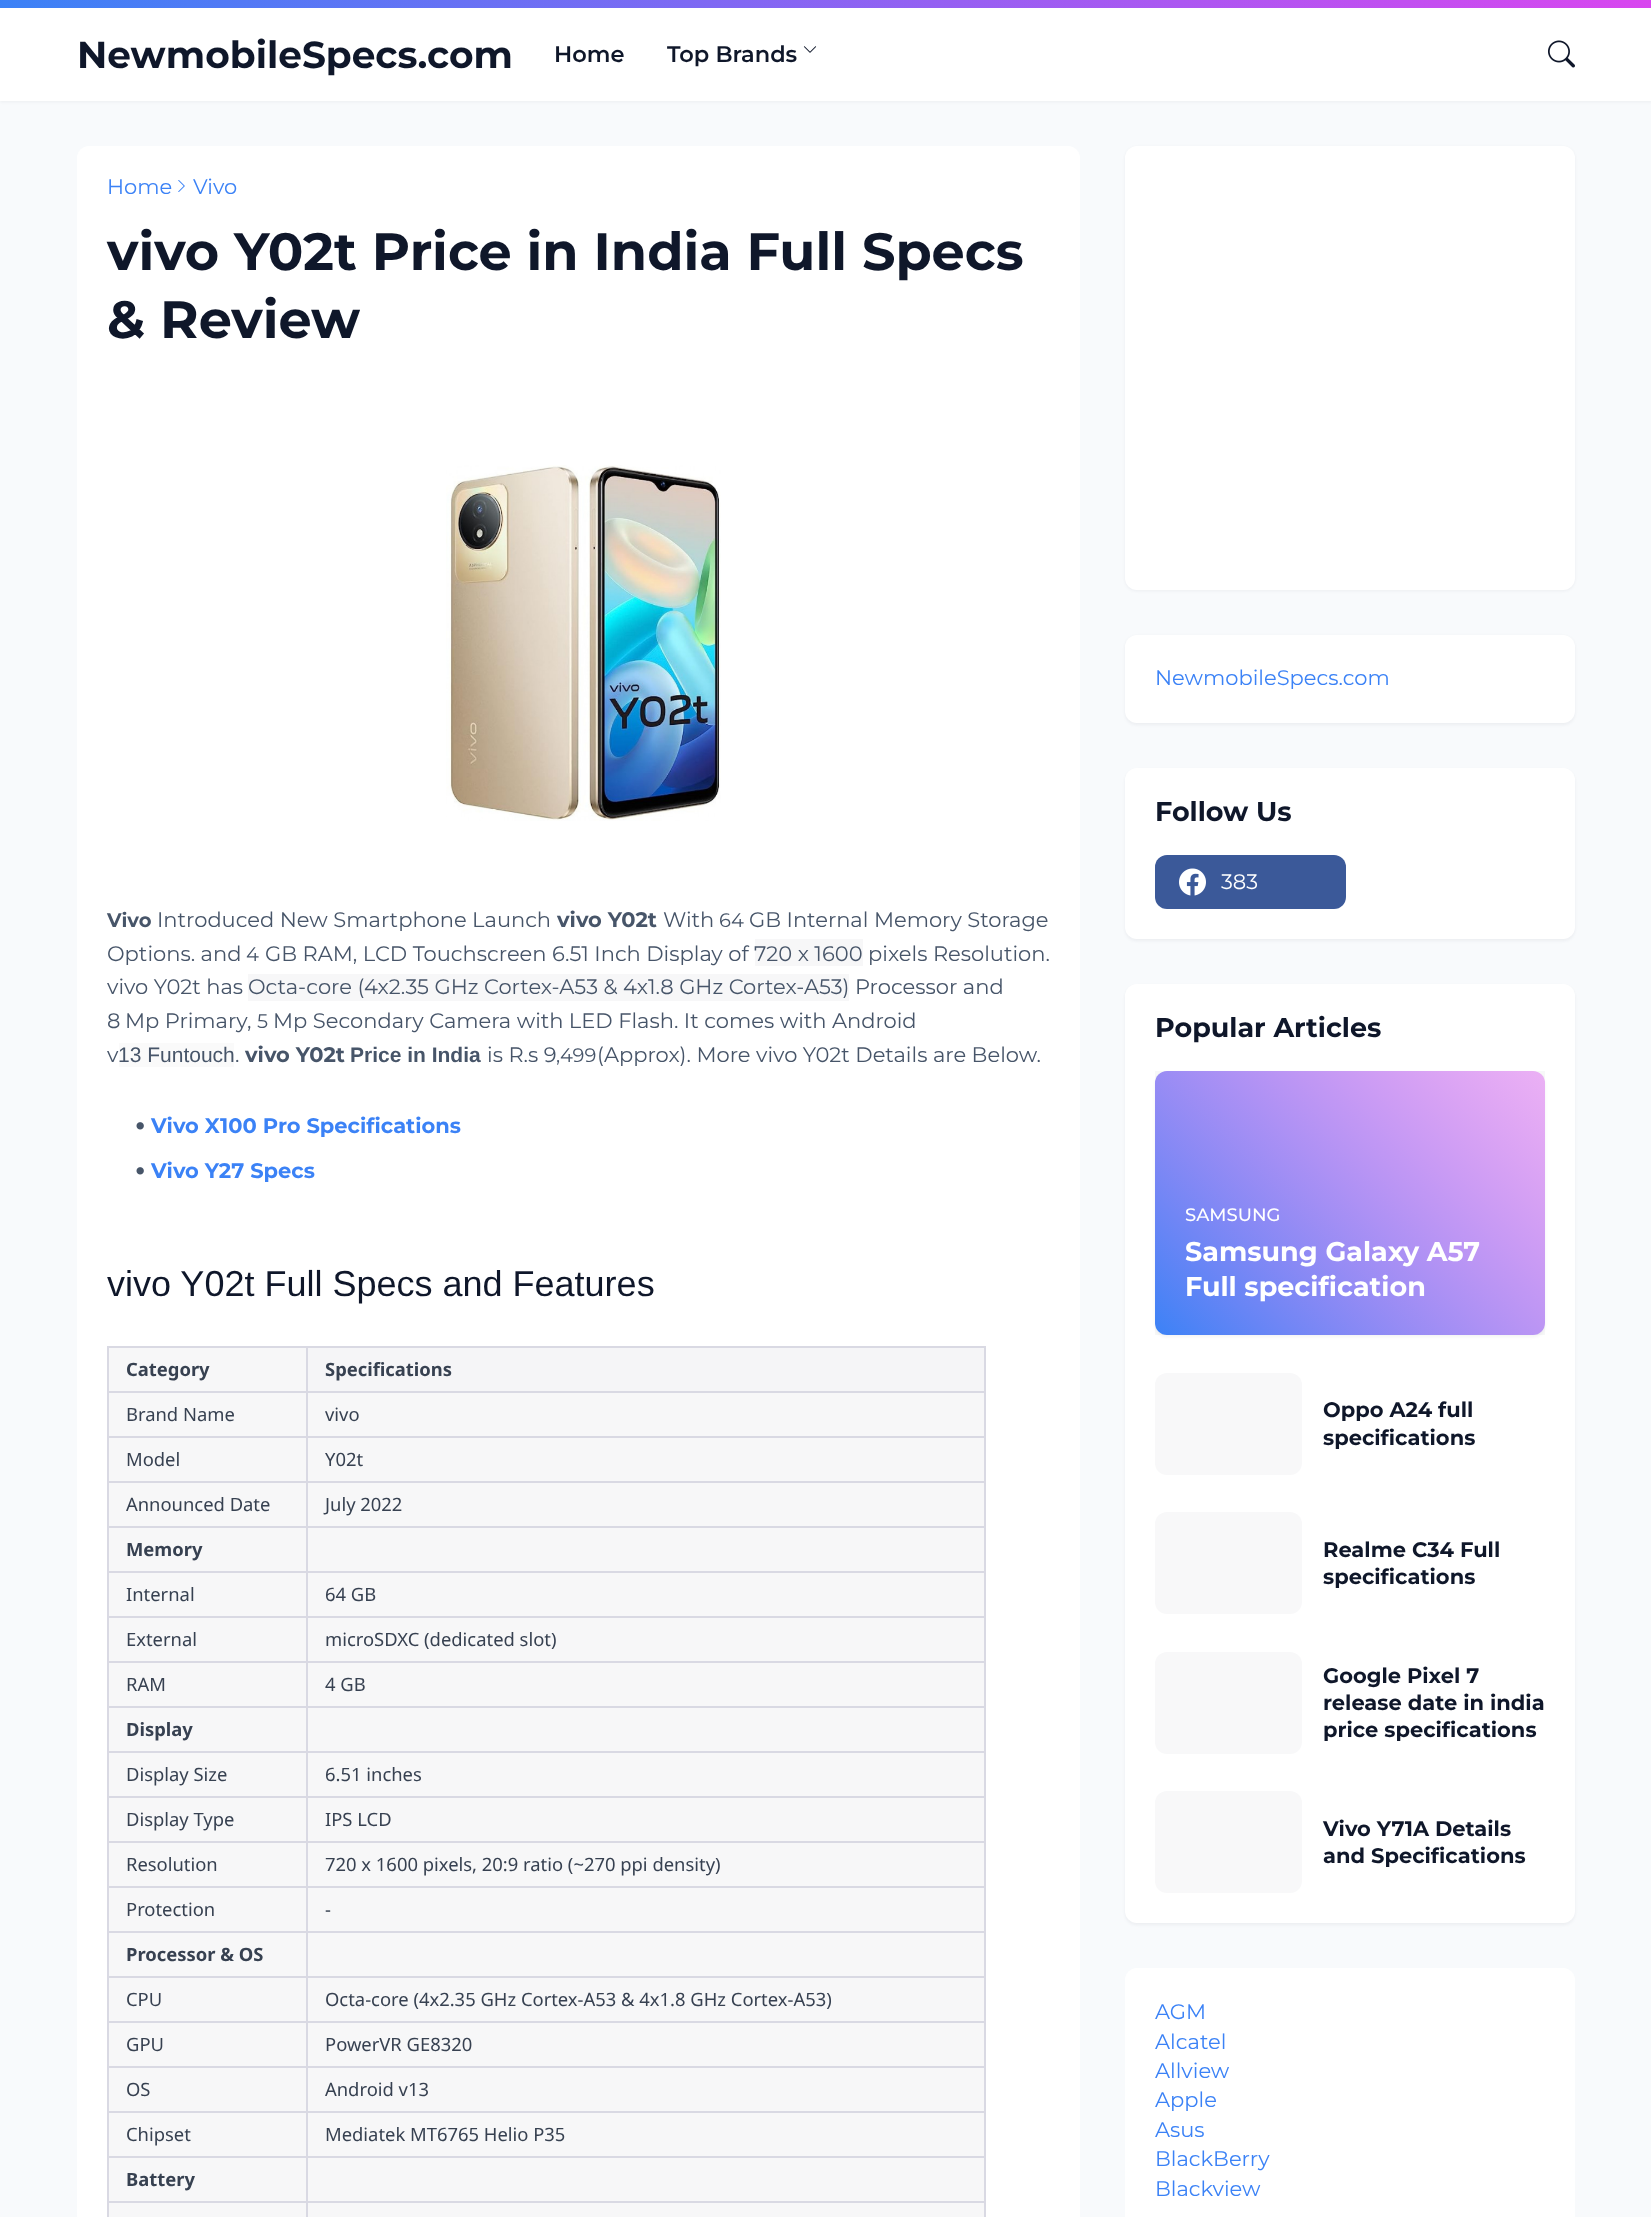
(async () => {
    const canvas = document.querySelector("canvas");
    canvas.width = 1651;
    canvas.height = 2217;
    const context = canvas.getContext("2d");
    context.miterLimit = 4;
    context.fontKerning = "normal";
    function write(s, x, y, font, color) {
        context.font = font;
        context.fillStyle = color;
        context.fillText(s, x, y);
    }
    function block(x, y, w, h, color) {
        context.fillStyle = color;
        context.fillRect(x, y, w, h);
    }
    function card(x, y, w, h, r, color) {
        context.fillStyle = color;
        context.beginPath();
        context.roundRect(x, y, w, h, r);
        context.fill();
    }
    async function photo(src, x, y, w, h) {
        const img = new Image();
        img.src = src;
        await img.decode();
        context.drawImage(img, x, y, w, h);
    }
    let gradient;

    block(0, 0, 1651, 2217, "rgb(248, 250, 252)");
    context.fillStyle = "rgba(15, 23, 42, 0.05)";
    context.filter = "blur(1.5px)";
    context.beginPath();
    context.rect(0, 2, 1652, 100);
    context.fill();
    context.filter = "none";
    gradient = context.createLinearGradient(411, 419, 1241, -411);
    gradient.addColorStop(0, "rgb(59, 130, 246)");
    gradient.addColorStop(1, "rgb(217, 70, 239)");
    context.fillStyle = gradient;
    context.fillRect(0, 0, 1651, 8);
    block(0, 8, 1651, 93, "rgb(255, 255, 255)");
    write("NewmobileSpecs.com", 77, 68, "bold 37.5px Montserrat", "rgb(15, 23, 42)");
    write("Home", 554, 62, "600 22.5px Montserrat", "rgb(15, 23, 42)");
    write("Top Brands", 667, 62, "600 22.5px Montserrat", "rgb(15, 23, 42)");
    await photo("media/1.png", 803, 46, 14, 7);
    await photo("media/2.png", 1548, 40, 27, 28);
    card(77, 146, 1003, 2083, 12, "rgb(255, 255, 255)");
    write("Home", 107, 194, "21px Montserrat", "rgb(59, 130, 246)");
    await photo("media/3.png", 178, 180, 7, 12);
    write("Vivo", 193, 194, "21px Montserrat", "rgb(59, 130, 246)");
    write("vivo Y02t Price in India Full Specs", 107, 270, "bold 52.5px Montserrat", "rgb(15, 23, 42)");
    write("& Review", 107, 338, "bold 52.5px Montserrat", "rgb(15, 23, 42)");
    await photo("media/4.png", 446, 465, 275, 356);
    write("Vivo", 107, 927, "bold 19.5px Montserrat", "rgb(71, 85, 105)");
    write("Introduced New Smartphone Launch", 157, 927, "21px Montserrat", "rgb(71, 85, 105)");
    write("vivo Y02t", 557, 927, "bold 21px Montserrat", "rgb(71, 85, 105)");
    write("With", 663, 927, "21px Montserrat", "rgb(71, 85, 105)");
    write("64", 719, 927, "19.5px Montserrat", "rgb(71, 85, 105)");
    write("GB Internal Memory Storage", 749, 927, "21px Montserrat", "rgb(71, 85, 105)");
    write("Options. and", 107, 961, "21px Montserrat", "rgb(71, 85, 105)");
    write("4", 246, 961, "19.5px Montserrat", "rgb(71, 85, 105)");
    write("GB RAM, LCD Touchscreen 6.51 Inch Display of", 265, 961, "21px Montserrat", "rgb(71, 85, 105)");
    block(755, 939, 108, 27, "rgb(247, 247, 248)");
    write("720 x 1600 pixels Resolution.", 754, 961, "21px Montserrat", "rgb(71, 85, 105)");
    write("vivo Y02t has", 107, 994, "21px Montserrat", "rgb(71, 85, 105)");
    block(248, 974, 601, 27, "rgb(247, 247, 248)");
    write("Octa-core (4x2.35 GHz Cortex-A53 & 4x1.8 GHz Cortex-A53) Processor and", 248, 994, "21px Montserrat", "rgb(71, 85, 105)");
    write("8", 107, 1028, "21px Montserrat", "rgb(71, 85, 105)");
    write("Mp Primary,", 125, 1028, "21px Montserrat", "rgb(71, 85, 105)");
    write("5", 257, 1028, "19.5px Montserrat", "rgb(71, 85, 105)");
    write("Mp Secondary Camera with LED Flash. It comes with Android", 273, 1028, "21px Montserrat", "rgb(71, 85, 105)");
    write("v", 107, 1062, "21px Montserrat", "rgb(71, 85, 105)");
    block(119, 1043, 115, 24, "rgb(250, 250, 250)");
    write("13 Funtouch", 118, 1062, "21px Liberation Sans", "rgb(71, 85, 105)");
    write(".", 235, 1062, "21px Montserrat", "rgb(71, 85, 105)");
    write("vivo Y02t", 245, 1062, "bold 21px Montserrat", "rgb(71, 85, 105)");
    write("Price in India", 350, 1062, "bold 21px Liberation Sans", "rgb(71, 85, 105)");
    write("is R.s 9", 487, 1062, "21px Montserrat", "rgb(71, 85, 105)");
    write(",499", 556, 1062, "19.5px Montserrat", "rgb(71, 85, 105)");
    write("(Approx). More vivo Y02t Details are Below.", 597, 1062, "21px Montserrat", "rgb(71, 85, 105)");
    await photo("media/5.png", 136, 1122, 8, 8);
    write("Vivo X100 Pro Specifications", 151, 1133, "bold 21px Montserrat", "rgb(59, 130, 246)");
    await photo("media/5.png", 136, 1167, 8, 8);
    write("Vivo Y27 Specs", 151, 1178, "bold 21px Montserrat", "rgb(59, 130, 246)");
    write("vivo Y02t Full Specs and Features", 107, 1296, "36px Liberation Sans", "rgb(15, 23, 42)");
    block(109, 1348, 875, 869, "rgb(247, 247, 248)");
    context.fillStyle = "rgb(245, 245, 247)";
    context.beginPath();
    context.roundRect(306, 1347, 680, 45, [0, 9, 0, 0]);
    context.fill();
    block(306, 1346, 680, 2, "rgb(217, 217, 227)");
    block(984, 1391, 2, 826, "rgb(217, 217, 227)");
    block(984, 1346, 2, 46, "rgb(217, 217, 227)");
    block(306, 2201, 2, 16, "rgb(217, 217, 227)");
    block(306, 2201, 680, 2, "rgb(217, 217, 227)");
    block(306, 2156, 2, 46, "rgb(217, 217, 227)");
    block(306, 2156, 680, 2, "rgb(217, 217, 227)");
    block(306, 2111, 2, 46, "rgb(217, 217, 227)");
    block(306, 2111, 680, 2, "rgb(217, 217, 227)");
    block(306, 2066, 2, 46, "rgb(217, 217, 227)");
    block(306, 2066, 680, 2, "rgb(217, 217, 227)");
    block(306, 2021, 2, 46, "rgb(217, 217, 227)");
    block(306, 2021, 680, 2, "rgb(217, 217, 227)");
    block(306, 1976, 2, 46, "rgb(217, 217, 227)");
    block(306, 1976, 680, 2, "rgb(217, 217, 227)");
    block(306, 1931, 2, 46, "rgb(217, 217, 227)");
    block(306, 1931, 680, 2, "rgb(217, 217, 227)");
    block(306, 1886, 2, 46, "rgb(217, 217, 227)");
    block(306, 1886, 680, 2, "rgb(217, 217, 227)");
    block(306, 1841, 2, 46, "rgb(217, 217, 227)");
    block(306, 1841, 680, 2, "rgb(217, 217, 227)");
    block(306, 1796, 2, 46, "rgb(217, 217, 227)");
    block(306, 1796, 680, 2, "rgb(217, 217, 227)");
    block(306, 1751, 2, 46, "rgb(217, 217, 227)");
    block(306, 1751, 680, 2, "rgb(217, 217, 227)");
    block(306, 1706, 2, 46, "rgb(217, 217, 227)");
    block(306, 1706, 680, 2, "rgb(217, 217, 227)");
    block(306, 1661, 2, 46, "rgb(217, 217, 227)");
    block(306, 1661, 680, 2, "rgb(217, 217, 227)");
    block(306, 1616, 2, 46, "rgb(217, 217, 227)");
    block(306, 1616, 680, 2, "rgb(217, 217, 227)");
    block(306, 1571, 2, 46, "rgb(217, 217, 227)");
    block(306, 1571, 680, 2, "rgb(217, 217, 227)");
    block(306, 1526, 2, 46, "rgb(217, 217, 227)");
    block(306, 1526, 680, 2, "rgb(217, 217, 227)");
    block(306, 1481, 2, 46, "rgb(217, 217, 227)");
    block(306, 1481, 680, 2, "rgb(217, 217, 227)");
    block(306, 1436, 2, 46, "rgb(217, 217, 227)");
    block(306, 1436, 680, 2, "rgb(217, 217, 227)");
    block(306, 1391, 2, 46, "rgb(217, 217, 227)");
    block(306, 1391, 680, 2, "rgb(217, 217, 227)");
    block(306, 1346, 2, 46, "rgb(217, 217, 227)");
    block(107, 1346, 201, 2, "rgb(217, 217, 227)");
    block(107, 2201, 2, 16, "rgb(217, 217, 227)");
    block(107, 2201, 201, 2, "rgb(217, 217, 227)");
    block(107, 2156, 2, 46, "rgb(217, 217, 227)");
    block(107, 2156, 201, 2, "rgb(217, 217, 227)");
    block(107, 2111, 2, 46, "rgb(217, 217, 227)");
    block(107, 2111, 201, 2, "rgb(217, 217, 227)");
    block(107, 2066, 2, 46, "rgb(217, 217, 227)");
    block(107, 2066, 201, 2, "rgb(217, 217, 227)");
    block(107, 2021, 2, 46, "rgb(217, 217, 227)");
    block(107, 2021, 201, 2, "rgb(217, 217, 227)");
    block(107, 1976, 2, 46, "rgb(217, 217, 227)");
    block(107, 1976, 201, 2, "rgb(217, 217, 227)");
    block(107, 1931, 2, 46, "rgb(217, 217, 227)");
    block(107, 1931, 201, 2, "rgb(217, 217, 227)");
    block(107, 1886, 2, 46, "rgb(217, 217, 227)");
    block(107, 1886, 201, 2, "rgb(217, 217, 227)");
    block(107, 1841, 2, 46, "rgb(217, 217, 227)");
    block(107, 1841, 201, 2, "rgb(217, 217, 227)");
    block(107, 1796, 2, 46, "rgb(217, 217, 227)");
    block(107, 1796, 201, 2, "rgb(217, 217, 227)");
    block(107, 1751, 2, 46, "rgb(217, 217, 227)");
    block(107, 1751, 201, 2, "rgb(217, 217, 227)");
    block(107, 1706, 2, 46, "rgb(217, 217, 227)");
    block(107, 1706, 201, 2, "rgb(217, 217, 227)");
    block(107, 1661, 2, 46, "rgb(217, 217, 227)");
    block(107, 1661, 201, 2, "rgb(217, 217, 227)");
    block(107, 1616, 2, 46, "rgb(217, 217, 227)");
    block(107, 1616, 201, 2, "rgb(217, 217, 227)");
    block(107, 1571, 2, 46, "rgb(217, 217, 227)");
    block(107, 1571, 201, 2, "rgb(217, 217, 227)");
    block(107, 1526, 2, 46, "rgb(217, 217, 227)");
    block(107, 1526, 201, 2, "rgb(217, 217, 227)");
    block(107, 1481, 2, 46, "rgb(217, 217, 227)");
    block(107, 1481, 201, 2, "rgb(217, 217, 227)");
    block(107, 1436, 2, 46, "rgb(217, 217, 227)");
    block(107, 1436, 201, 2, "rgb(217, 217, 227)");
    block(107, 1391, 2, 46, "rgb(217, 217, 227)");
    block(107, 1391, 201, 2, "rgb(217, 217, 227)");
    block(107, 1346, 2, 46, "rgb(217, 217, 227)");
    write("Category", 126, 1376, "bold 18.4px Noto Sans", "rgb(55, 65, 81)");
    write("Specifications", 325, 1376, "bold 18.4px Noto Sans", "rgb(55, 65, 81)");
    write("Brand Name", 126, 1421, "18.4px Noto Sans", "rgb(55, 65, 81)");
    write("vivo", 325, 1421, "18.4px Noto Sans", "rgb(55, 65, 81)");
    write("Model", 126, 1466, "18.4px Noto Sans", "rgb(55, 65, 81)");
    write("Y02t", 325, 1466, "18.4px Noto Sans", "rgb(55, 65, 81)");
    write("Announced Date", 126, 1511, "18.4px Noto Sans", "rgb(55, 65, 81)");
    write("July 2022", 325, 1511, "18.4px Noto Sans", "rgb(55, 65, 81)");
    write("Memory", 126, 1556, "bold 18.4px Noto Sans", "rgb(55, 65, 81)");
    write("Internal", 126, 1601, "18.4px Noto Sans", "rgb(55, 65, 81)");
    write("64 GB", 325, 1601, "18.4px Noto Sans", "rgb(55, 65, 81)");
    write("External", 126, 1646, "18.4px Noto Sans", "rgb(55, 65, 81)");
    write("microSDXC (dedicated slot)", 325, 1646, "18.4px Noto Sans", "rgb(55, 65, 81)");
    write("RAM", 126, 1691, "18.4px Noto Sans", "rgb(55, 65, 81)");
    write("4 GB", 325, 1691, "18.4px Noto Sans", "rgb(55, 65, 81)");
    write("Display", 126, 1736, "bold 18.4px Noto Sans", "rgb(55, 65, 81)");
    write("Display Size", 126, 1781, "18.4px Noto Sans", "rgb(55, 65, 81)");
    write("6.51 inches", 325, 1781, "18.4px Noto Sans", "rgb(55, 65, 81)");
    write("Display Type", 126, 1826, "18.4px Noto Sans", "rgb(55, 65, 81)");
    write("IPS LCD", 325, 1826, "18.4px Noto Sans", "rgb(55, 65, 81)");
    write("Resolution", 126, 1871, "18.4px Noto Sans", "rgb(55, 65, 81)");
    write("720 x 1600 pixels, 20:9 ratio (~270 ppi density)", 325, 1871, "18.4px Noto Sans", "rgb(55, 65, 81)");
    write("Protection", 126, 1916, "18.4px Noto Sans", "rgb(55, 65, 81)");
    write("-", 325, 1916, "18.4px Noto Sans", "rgb(55, 65, 81)");
    write("Processor & OS", 126, 1961, "bold 18.4px Noto Sans", "rgb(55, 65, 81)");
    write("CPU", 126, 2006, "18.4px Noto Sans", "rgb(55, 65, 81)");
    write("Octa-core (4x2.35 GHz Cortex-A53 & 4x1.8 GHz Cortex-A53)", 325, 2006, "18.4px Noto Sans", "rgb(55, 65, 81)");
    write("GPU", 126, 2051, "18.4px Noto Sans", "rgb(55, 65, 81)");
    write("PowerVR GE8320", 325, 2051, "18.4px Noto Sans", "rgb(55, 65, 81)");
    write("OS", 126, 2096, "18.4px Noto Sans", "rgb(55, 65, 81)");
    write("Android v13", 325, 2096, "18.4px Noto Sans", "rgb(55, 65, 81)");
    write("Chipset", 126, 2141, "18.4px Noto Sans", "rgb(55, 65, 81)");
    write("Mediatek MT6765 Helio P35", 325, 2141, "18.4px Noto Sans", "rgb(55, 65, 81)");
    write("Battery", 126, 2186, "bold 18.4px Noto Sans", "rgb(55, 65, 81)");
    context.fillStyle = "rgba(15, 23, 42, 0.05)";
    context.filter = "blur(1.5px)";
    context.beginPath();
    context.roundRect(1125, 147, 450, 444, 12);
    context.fill();
    context.filter = "none";
    card(1125, 146, 450, 444, 12, "rgb(255, 255, 255)");
    context.fillStyle = "rgba(15, 23, 42, 0.05)";
    context.filter = "blur(1.5px)";
    context.beginPath();
    context.roundRect(1125, 636, 450, 89, 12);
    context.fill();
    context.filter = "none";
    card(1125, 635, 450, 88, 12, "rgb(255, 255, 255)");
    write("NewmobileSpecs.com", 1155, 685, "21px Montserrat", "rgb(59, 130, 246)");
    context.fillStyle = "rgba(15, 23, 42, 0.05)";
    context.filter = "blur(1.5px)";
    context.beginPath();
    context.roundRect(1125, 770, 450, 171, 12);
    context.fill();
    context.filter = "none";
    card(1125, 768, 450, 171, 12, "rgb(255, 255, 255)");
    write("Follow Us", 1155, 821, "bold 27px Montserrat", "rgb(15, 23, 42)");
    card(1155, 855, 191, 54, 12, "rgb(59, 89, 153)");
    await photo("media/6.png", 1179, 868, 27, 28);
    write("383", 1221, 889, "21px Montserrat", "rgb(255, 255, 255)");
    context.fillStyle = "rgba(15, 23, 42, 0.05)";
    context.filter = "blur(1.5px)";
    context.beginPath();
    context.roundRect(1125, 986, 450, 939, 12);
    context.fill();
    context.filter = "none";
    card(1125, 984, 450, 939, 12, "rgb(255, 255, 255)");
    write("Popular Articles", 1155, 1037, "bold 27px Montserrat", "rgb(15, 23, 42)");
    context.save();
    context.beginPath();
    context.moveTo(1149, 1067);
    context.lineTo(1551, 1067);
    context.lineTo(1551, 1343);
    context.lineTo(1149, 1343);
    context.closePath();
    context.moveTo(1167, 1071);
    context.lineTo(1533, 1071);
    context.bezierCurveTo(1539.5, 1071, 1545, 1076.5, 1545, 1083);
    context.lineTo(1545, 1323);
    context.bezierCurveTo(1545, 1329.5, 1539.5, 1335, 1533, 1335);
    context.lineTo(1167, 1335);
    context.bezierCurveTo(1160.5, 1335, 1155, 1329.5, 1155, 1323);
    context.lineTo(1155, 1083);
    context.bezierCurveTo(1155, 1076.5, 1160.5, 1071, 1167, 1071);
    context.closePath();
    context.clip("evenodd");
    context.fillStyle = "rgba(15, 23, 42, 0.05)";
    context.filter = "blur(1.5px)";
    context.beginPath();
    context.roundRect(1155, 1073, 390, 264, 12);
    context.fill();
    context.filter = "none";
    context.restore();
    block(1155, 1071, 390, 264, "rgba(15, 23, 42, 0.03)");
    gradient = context.createLinearGradient(1187, 1367, 1514, 1040);
    gradient.addColorStop(0, "rgb(59, 130, 246)");
    gradient.addColorStop(1, "rgba(217, 70, 239, 0.4)");
    context.fillStyle = gradient;
    context.beginPath();
    context.roundRect(1155, 1071, 390, 264, 12);
    context.fill();
    write("SAMSUNG", 1185, 1221, "500 18px Montserrat", "rgb(255, 255, 255)");
    write("Samsung Galaxy A57", 1185, 1261, "bold 27px Montserrat", "rgb(255, 255, 255)");
    write("Full specification", 1185, 1296, "bold 27px Montserrat", "rgb(255, 255, 255)");
    card(1155, 1373, 147, 102, 12, "rgb(248, 248, 249)");
    write("Oppo A24 full", 1323, 1417, "bold 21px Montserrat", "rgb(15, 23, 42)");
    write("specifications", 1323, 1445, "bold 21px Montserrat", "rgb(15, 23, 42)");
    card(1155, 1512, 147, 102, 12, "rgb(248, 248, 249)");
    write("Realme C34 Full", 1323, 1557, "bold 21px Montserrat", "rgb(15, 23, 42)");
    write("specifications", 1323, 1584, "bold 21px Montserrat", "rgb(15, 23, 42)");
    card(1155, 1652, 147, 102, 12, "rgb(248, 248, 249)");
    write("Google Pixel 7", 1323, 1683, "bold 21px Montserrat", "rgb(15, 23, 42)");
    write("release date in india", 1323, 1710, "bold 21px Montserrat", "rgb(15, 23, 42)");
    write("price specifications", 1323, 1737, "bold 21px Montserrat", "rgb(15, 23, 42)");
    card(1155, 1791, 147, 102, 12, "rgb(248, 248, 249)");
    write("Vivo Y71A Details", 1323, 1836, "bold 21px Montserrat", "rgb(15, 23, 42)");
    write("and Specifications", 1323, 1863, "bold 21px Montserrat", "rgb(15, 23, 42)");
    card(1125, 1968, 450, 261, 12, "rgb(255, 255, 255)");
    write("AGM", 1155, 2019, "21px Montserrat", "rgb(59, 130, 246)");
    write("Alcatel", 1155, 2049, "21px Montserrat", "rgb(59, 130, 246)");
    write("Allview", 1155, 2078, "21px Montserrat", "rgb(59, 130, 246)");
    write("Apple", 1155, 2107, "21px Montserrat", "rgb(59, 130, 246)");
    write("Asus", 1155, 2137, "21px Montserrat", "rgb(59, 130, 246)");
    write("BlackBerry", 1155, 2166, "21px Montserrat", "rgb(59, 130, 246)");
    write("Blackview", 1155, 2196, "21px Montserrat", "rgb(59, 130, 246)");
})();
